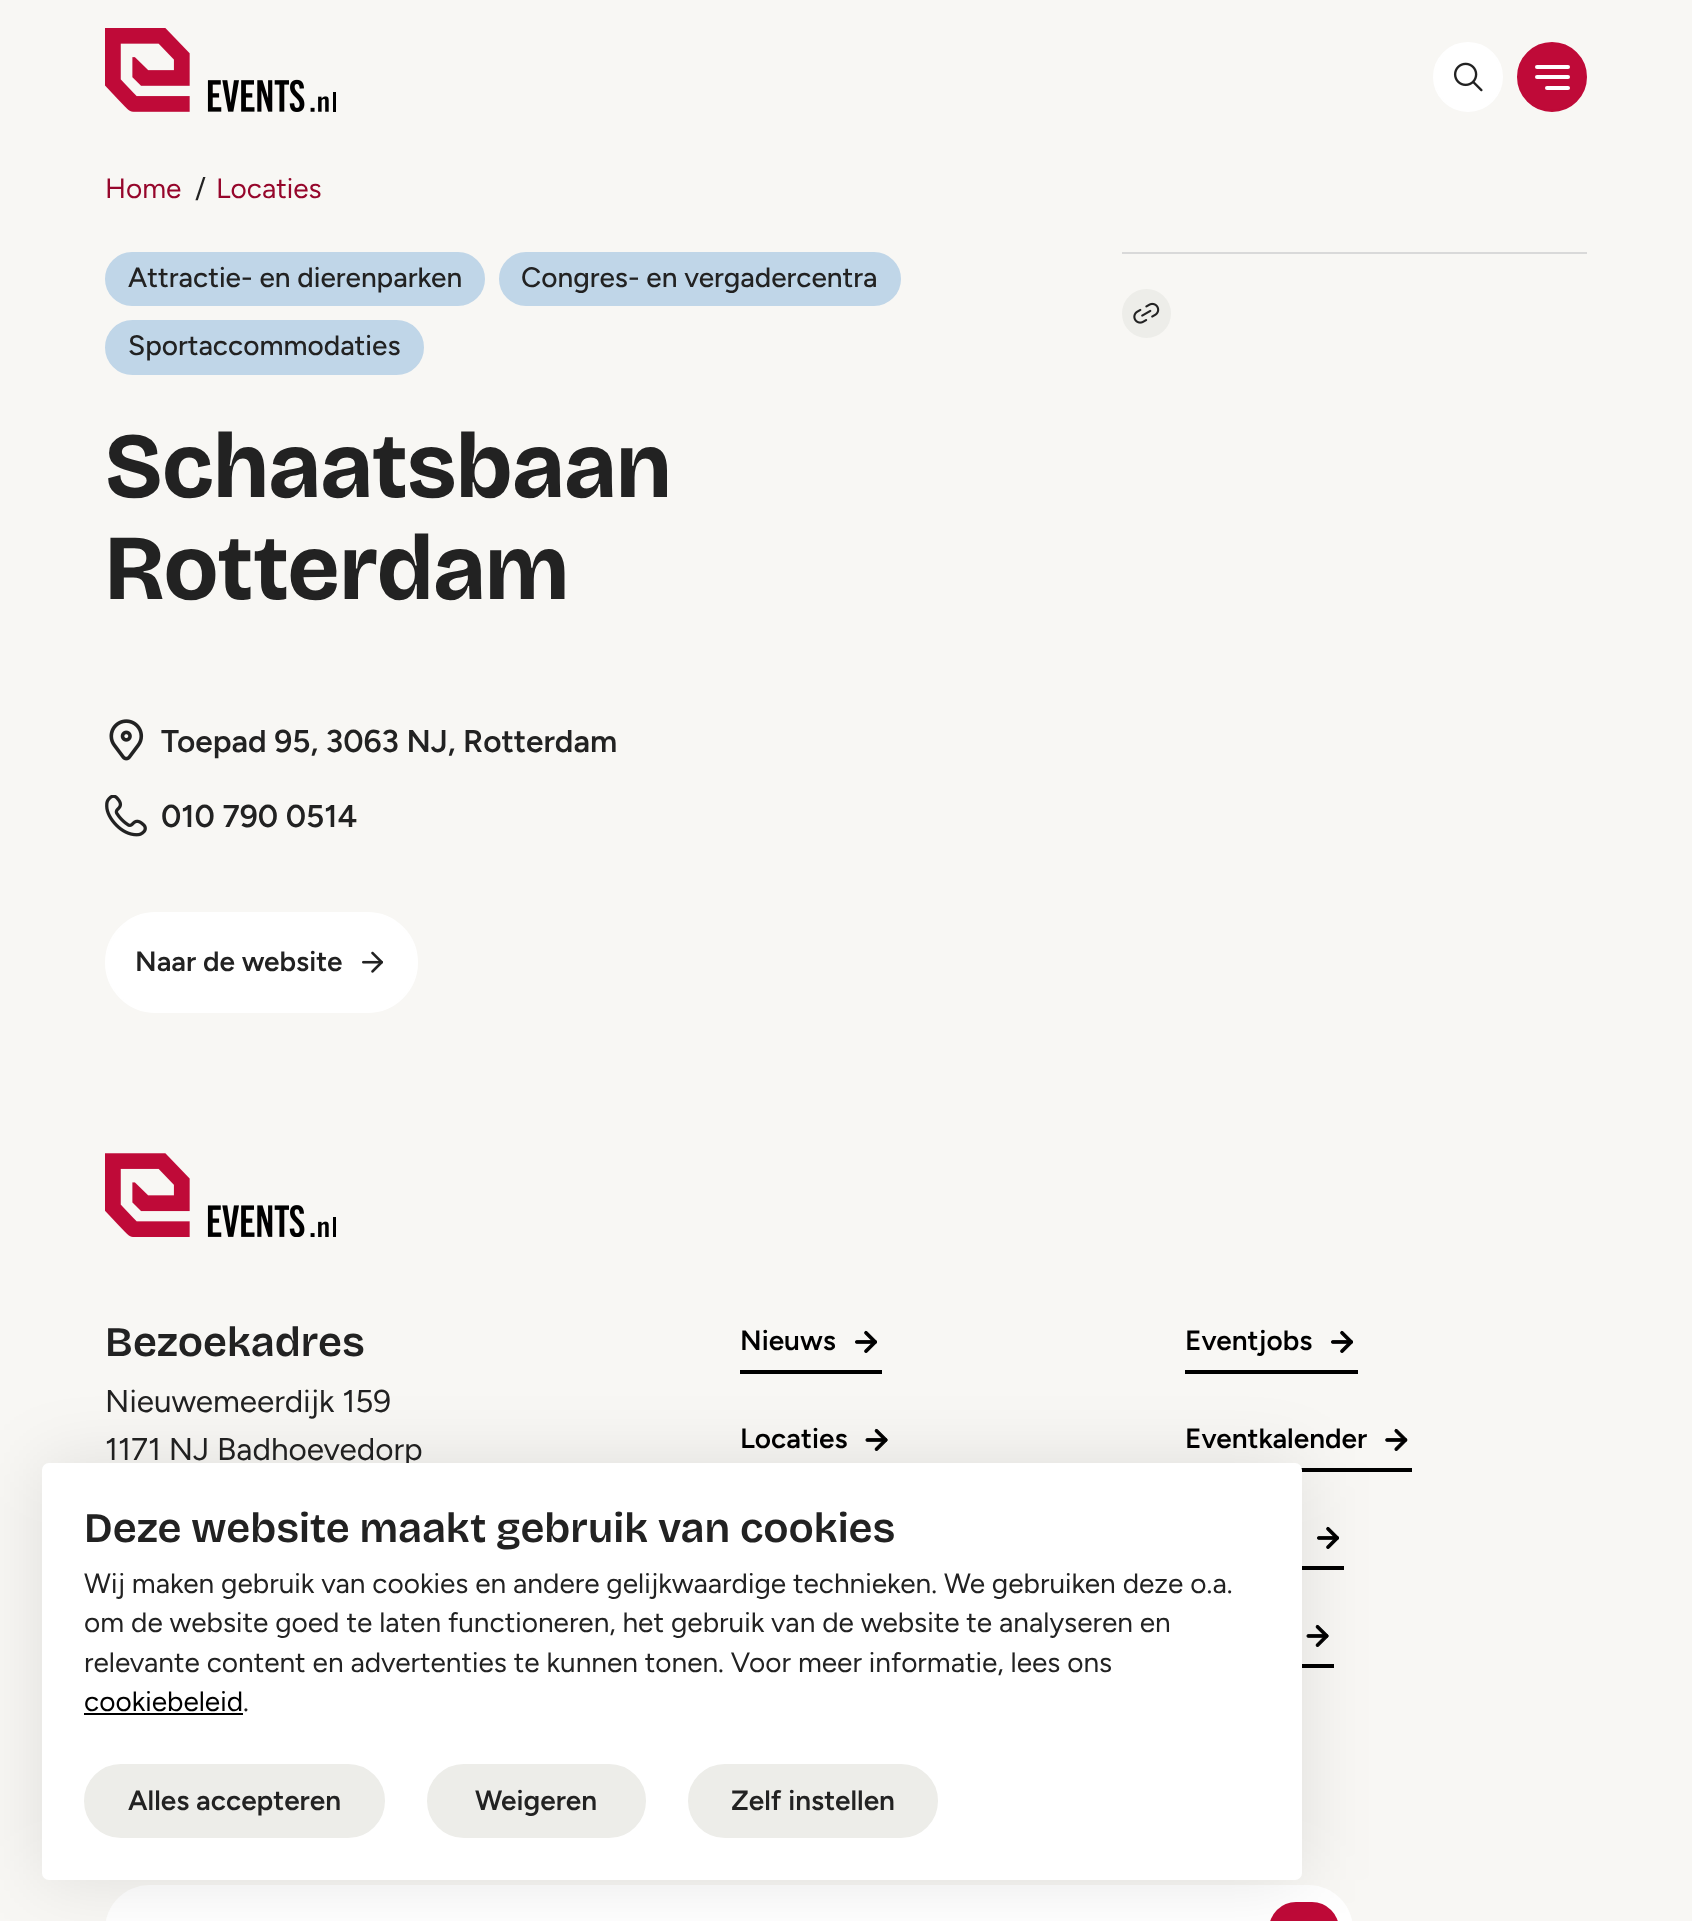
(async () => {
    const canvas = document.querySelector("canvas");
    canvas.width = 1692;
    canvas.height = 1921;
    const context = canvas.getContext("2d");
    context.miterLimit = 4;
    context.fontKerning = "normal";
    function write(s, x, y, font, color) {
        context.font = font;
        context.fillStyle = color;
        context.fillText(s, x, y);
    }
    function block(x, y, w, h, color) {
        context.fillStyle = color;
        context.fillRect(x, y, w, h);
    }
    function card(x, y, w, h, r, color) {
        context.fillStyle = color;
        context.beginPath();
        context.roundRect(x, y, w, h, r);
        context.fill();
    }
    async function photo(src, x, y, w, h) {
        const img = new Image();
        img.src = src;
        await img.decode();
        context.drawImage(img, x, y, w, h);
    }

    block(0, 0, 1692, 1921, "rgb(248, 247, 244)");
    await photo("media/1.png", 105, 28, 231, 84);
    context.fillStyle = "rgb(255, 255, 255)";
    context.beginPath();
    context.arc(1468, 77, 34, 0, Math.PI * 2);
    context.fill();
    context.strokeStyle = "rgb(255, 255, 255)";
    context.lineWidth = 2;
    context.stroke();
    await photo("media/2.png", 1453, 62, 30, 30);
    context.fillStyle = "rgb(191, 10, 56)";
    context.beginPath();
    context.arc(1552, 77, 34, 0, Math.PI * 2);
    context.fill();
    context.strokeStyle = "rgb(191, 10, 56)";
    context.stroke();
    card(1535, 65, 35, 4, 2, "rgb(255, 255, 255)");
    card(1535, 75, 35, 4, 2, "rgb(255, 255, 255)");
    card(1545, 86, 25, 4, 2, "rgb(255, 255, 255)");
    write("Home", 105, 198, "28px Figtree", "rgb(150, 6, 43)");
    write("/", 195, 198, "28px Figtree", "rgb(34, 34, 34)");
    write("Locaties", 216, 198, "28px Figtree", "rgb(150, 6, 43)");
    context.fillStyle = "rgb(192, 214, 232)";
    context.beginPath();
    context.roundRect(106, 253, 378, 52, 26);
    context.fill();
    context.strokeStyle = "rgb(192, 214, 232)";
    context.stroke();
    write("Attractie- en dierenparken", 128, 287, "500 28px Figtree", "rgb(34, 34, 34)");
    context.fillStyle = "rgb(192, 214, 232)";
    context.beginPath();
    context.roundRect(500, 253, 400, 52, 26);
    context.fill();
    context.stroke();
    write("Congres- en vergadercentra", 521, 287, "500 28px Figtree", "rgb(34, 34, 34)");
    context.fillStyle = "rgb(192, 214, 232)";
    context.beginPath();
    context.roundRect(106, 321, 317, 53, 26.5);
    context.fill();
    context.stroke();
    write("Sportaccommodaties", 128, 355, "500 28px Figtree", "rgb(34, 34, 34)");
    write("Schaatsbaan", 105, 497, "bold 92.75px Bricolage Grotesque", "rgb(34, 34, 34)");
    write("Rotterdam", 105, 599, "bold 92.75px Bricolage Grotesque", "rgb(34, 34, 34)");
    await photo("media/3.png", 109, 719, 35, 42);
    write("Toepad 95, 3063 NJ, Rotterdam", 161, 752, "600 31.5px Figtree", "rgb(34, 34, 34)");
    await photo("media/4.png", 105, 795, 42, 42);
    write("010 790 0514", 161, 827, "600 31.5px Figtree", "rgb(34, 34, 34)");
    context.fillStyle = "rgb(255, 255, 255)";
    context.beginPath();
    context.roundRect(106, 913, 311, 99, 49.5);
    context.fill();
    context.strokeStyle = "rgb(255, 255, 255)";
    context.stroke();
    write("Naar de website", 135, 971, "600 28px Figtree", "rgb(34, 34, 34)");
    await photo("media/5.png", 362, 951, 21, 22);
    block(1122, 252, 465, 2, "rgb(217, 217, 217)");
    context.fillStyle = "rgb(237, 237, 233)";
    context.beginPath();
    context.arc(1146.5, 313.5, 23.5, 0, Math.PI * 2);
    context.fill();
    context.strokeStyle = "rgb(237, 237, 233)";
    context.stroke();
    await photo("media/6.png", 1133, 302, 27, 22);
    await photo("media/7.png", 105, 1153, 231, 84);
    write("Bezoekadres", 105, 1356, "600 42px Bricolage Grotesque", "rgb(34, 34, 34)");
    write("Nieuwemeerdijk 159", 105, 1412, "31.5px Figtree", "rgb(34, 34, 34)");
    write("1171 NJ Badhoevedorp", 105, 1460, "31.5px Figtree", "rgb(34, 34, 34)");
    write("Nieuws", 740, 1350, "600 28px Figtree", "rgb(0, 0, 0)");
    await photo("media/8.png", 855, 1330, 22, 23);
    block(740, 1370, 142, 4, "rgb(0, 0, 0)");
    write("Eventjobs", 1185, 1350, "600 28px Figtree", "rgb(0, 0, 0)");
    await photo("media/8.png", 1331, 1330, 22, 23);
    block(1185, 1370, 173, 4, "rgb(0, 0, 0)");
    write("Locaties", 740, 1448, "600 28px Figtree", "rgb(0, 0, 0)");
    await photo("media/9.png", 865, 1428, 23, 23);
    write("Eventkalender", 1185, 1448, "600 28px Figtree", "rgb(0, 0, 0)");
    await photo("media/10.png", 1385, 1428, 23, 23);
    block(1301, 1468, 111, 4, "rgb(0, 0, 0)");
    await photo("media/8.png", 1317, 1526, 22, 23);
    block(1302, 1566, 42, 4, "rgb(0, 0, 0)");
    await photo("media/9.png", 1306, 1624, 23, 23);
    block(1302, 1664, 32, 4, "rgb(0, 0, 0)");
    card(105, 1885, 1248, 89, 52.5, "rgb(255, 255, 255)");
    card(1269, 1902, 70, 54, 35, "rgb(191, 10, 56)");
    context.fillStyle = "rgba(0, 0, 0, 0.1)";
    context.filter = "blur(35px)";
    context.beginPath();
    context.roundRect(42, 1463, 1260, 417, 7);
    context.fill();
    context.filter = "none";
    card(42, 1463, 1260, 417, 7, "rgb(255, 255, 255)");
    write("Deze website maakt gebruik van cookies", 84, 1542, "600 42px Bricolage Grotesque", "rgb(34, 34, 34)");
    write("Wij maken gebruik van cookies en andere gelijkwaardige technieken. We gebruiken deze o.a.", 84, 1593, "28px Figtree", "rgb(34, 34, 34)");
    write("om de website goed te laten functioneren, het gebruik van de website te analyseren en", 84, 1632, "28px Figtree", "rgb(34, 34, 34)");
    write("relevante content en advertenties te kunnen tonen. Voor meer informatie, lees ons", 84, 1672, "28px Figtree", "rgb(34, 34, 34)");
    write("cookiebeleid", 84, 1711, "28px Figtree", "rgb(0, 0, 0)");
    block(84, 1713, 159, 2, "rgb(0, 0, 0)");
    write(".", 243, 1711, "28px Figtree", "rgb(34, 34, 34)");
    context.fillStyle = "rgb(237, 237, 233)";
    context.beginPath();
    context.roundRect(85, 1765, 299, 72, 36);
    context.fill();
    context.stroke();
    write("Alles accepteren", 128, 1810, "600 28px Figtree", "rgb(34, 34, 34)");
    context.fillStyle = "rgb(237, 237, 233)";
    context.beginPath();
    context.roundRect(428, 1765, 217, 72, 36);
    context.fill();
    context.stroke();
    write("Weigeren", 475, 1810, "600 28px Figtree", "rgb(34, 34, 34)");
    context.fillStyle = "rgb(237, 237, 233)";
    context.beginPath();
    context.roundRect(689, 1765, 248, 72, 36);
    context.fill();
    context.stroke();
    write("Zelf instellen", 731, 1810, "600 28px Figtree", "rgb(34, 34, 34)");
})();
